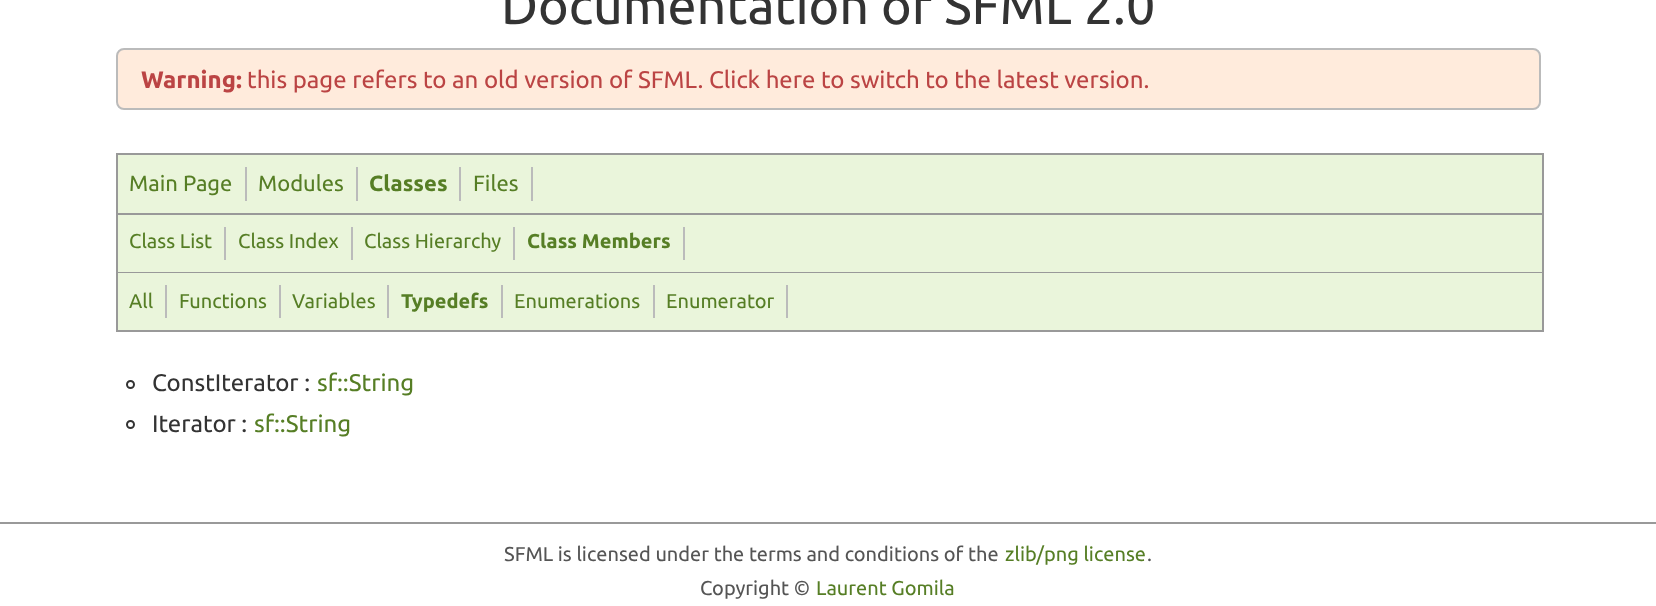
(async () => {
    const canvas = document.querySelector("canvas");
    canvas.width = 1656;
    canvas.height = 606;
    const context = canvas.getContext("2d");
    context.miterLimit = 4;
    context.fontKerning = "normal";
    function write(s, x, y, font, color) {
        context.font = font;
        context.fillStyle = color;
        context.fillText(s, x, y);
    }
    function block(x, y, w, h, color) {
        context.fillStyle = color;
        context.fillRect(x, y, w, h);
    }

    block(0, 0, 1656, 606, "rgb(255, 255, 255)");
    write("Documentation of SFML 2.0", 501, 24, "52px Ubuntu", "rgb(51, 51, 51)");
    context.fillStyle = "rgb(255, 235, 220)";
    context.beginPath();
    context.roundRect(117, 49, 1423, 60, 7);
    context.fill();
    context.strokeStyle = "rgb(187, 187, 187)";
    context.lineWidth = 2;
    context.stroke();
    write("Warning:", 141, 88, "bold 24px Ubuntu", "rgb(187, 68, 68)");
    write("this page refers to an old version of SFML. Click here to switch to the latest version.", 247, 88, "24px Ubuntu", "rgb(187, 68, 68)");
    context.fillStyle = "rgb(234, 245, 219)";
    context.beginPath();
    context.rect(117, 154, 1426, 60);
    context.fill();
    context.strokeStyle = "rgb(153, 153, 153)";
    context.stroke();
    block(245, 167, 2, 34, "rgb(187, 187, 187)");
    write("Main Page", 129, 191, "22px Ubuntu", "rgb(86, 126, 37)");
    block(356, 167, 2, 34, "rgb(187, 187, 187)");
    write("Modules", 258, 191, "22px Ubuntu", "rgb(86, 126, 37)");
    block(459, 167, 2, 34, "rgb(187, 187, 187)");
    write("Classes", 369, 191, "bold 22px Ubuntu", "rgb(86, 126, 37)");
    block(531, 167, 2, 34, "rgb(187, 187, 187)");
    write("Files", 473, 191, "22px Ubuntu", "rgb(86, 126, 37)");
    block(118, 215, 1424, 57, "rgb(234, 245, 219)");
    block(1542, 215, 2, 117, "rgb(153, 153, 153)");
    block(116, 272, 1428, 1, "rgb(153, 153, 153)");
    block(116, 215, 2, 58, "rgb(153, 153, 153)");
    block(224, 227, 2, 33, "rgb(187, 187, 187)");
    write("Class List", 129, 248, "20px Ubuntu", "rgb(86, 126, 37)");
    block(351, 227, 2, 33, "rgb(187, 187, 187)");
    write("Class Index", 238, 248, "20px Ubuntu", "rgb(86, 126, 37)");
    block(513, 227, 2, 33, "rgb(187, 187, 187)");
    write("Class Hierarchy", 364, 248, "20px Ubuntu", "rgb(86, 126, 37)");
    block(683, 227, 2, 33, "rgb(187, 187, 187)");
    write("Class Members", 527, 248, "bold 20px Ubuntu", "rgb(86, 126, 37)");
    block(118, 273, 1424, 57, "rgb(234, 245, 219)");
    block(116, 330, 1428, 2, "rgb(153, 153, 153)");
    block(116, 273, 2, 59, "rgb(153, 153, 153)");
    block(165, 285, 2, 33, "rgb(187, 187, 187)");
    write("All", 129, 308, "20px Ubuntu", "rgb(86, 126, 37)");
    block(279, 285, 2, 33, "rgb(187, 187, 187)");
    write("Functions", 179, 308, "20px Ubuntu", "rgb(86, 126, 37)");
    block(387, 285, 2, 33, "rgb(187, 187, 187)");
    write("Variables", 292, 308, "20px Ubuntu", "rgb(86, 126, 37)");
    block(501, 285, 2, 33, "rgb(187, 187, 187)");
    write("Typedefs", 401, 308, "bold 20px Ubuntu", "rgb(86, 126, 37)");
    block(653, 285, 2, 33, "rgb(187, 187, 187)");
    write("Enumerations", 514, 308, "20px Ubuntu", "rgb(86, 126, 37)");
    block(786, 285, 2, 33, "rgb(187, 187, 187)");
    write("Enumerator", 666, 308, "20px Ubuntu", "rgb(86, 126, 37)");
    context.beginPath();
    context.arc(130.5, 384.5, 3.5, 0, Math.PI * 2);
    context.strokeStyle = "rgb(51, 51, 51)";
    context.stroke();
    write("ConstIterator :", 152, 391, "24px Ubuntu", "rgb(51, 51, 51)");
    write("sf::String", 317, 391, "24px Ubuntu", "rgb(86, 126, 37)");
    context.beginPath();
    context.arc(130.5, 424.5, 3.5, 0, Math.PI * 2);
    context.stroke();
    write("Iterator :", 152, 432, "24px Ubuntu", "rgb(51, 51, 51)");
    write("sf::String", 254, 432, "24px Ubuntu", "rgb(86, 126, 37)");
    block(0, 522, 1656, 2, "rgb(153, 153, 153)");
    write("SFML is licensed under the terms and conditions of the", 504, 561, "20px Ubuntu", "rgb(85, 85, 85)");
    write("zlib/png license", 1005, 561, "20px Ubuntu", "rgb(86, 126, 37)");
    write(".", 1147, 561, "20px Ubuntu", "rgb(85, 85, 85)");
    write("Copyright ©", 700, 595, "20px Ubuntu", "rgb(85, 85, 85)");
    write("Laurent Gomila", 816, 595, "20px Ubuntu", "rgb(86, 126, 37)");
})();
